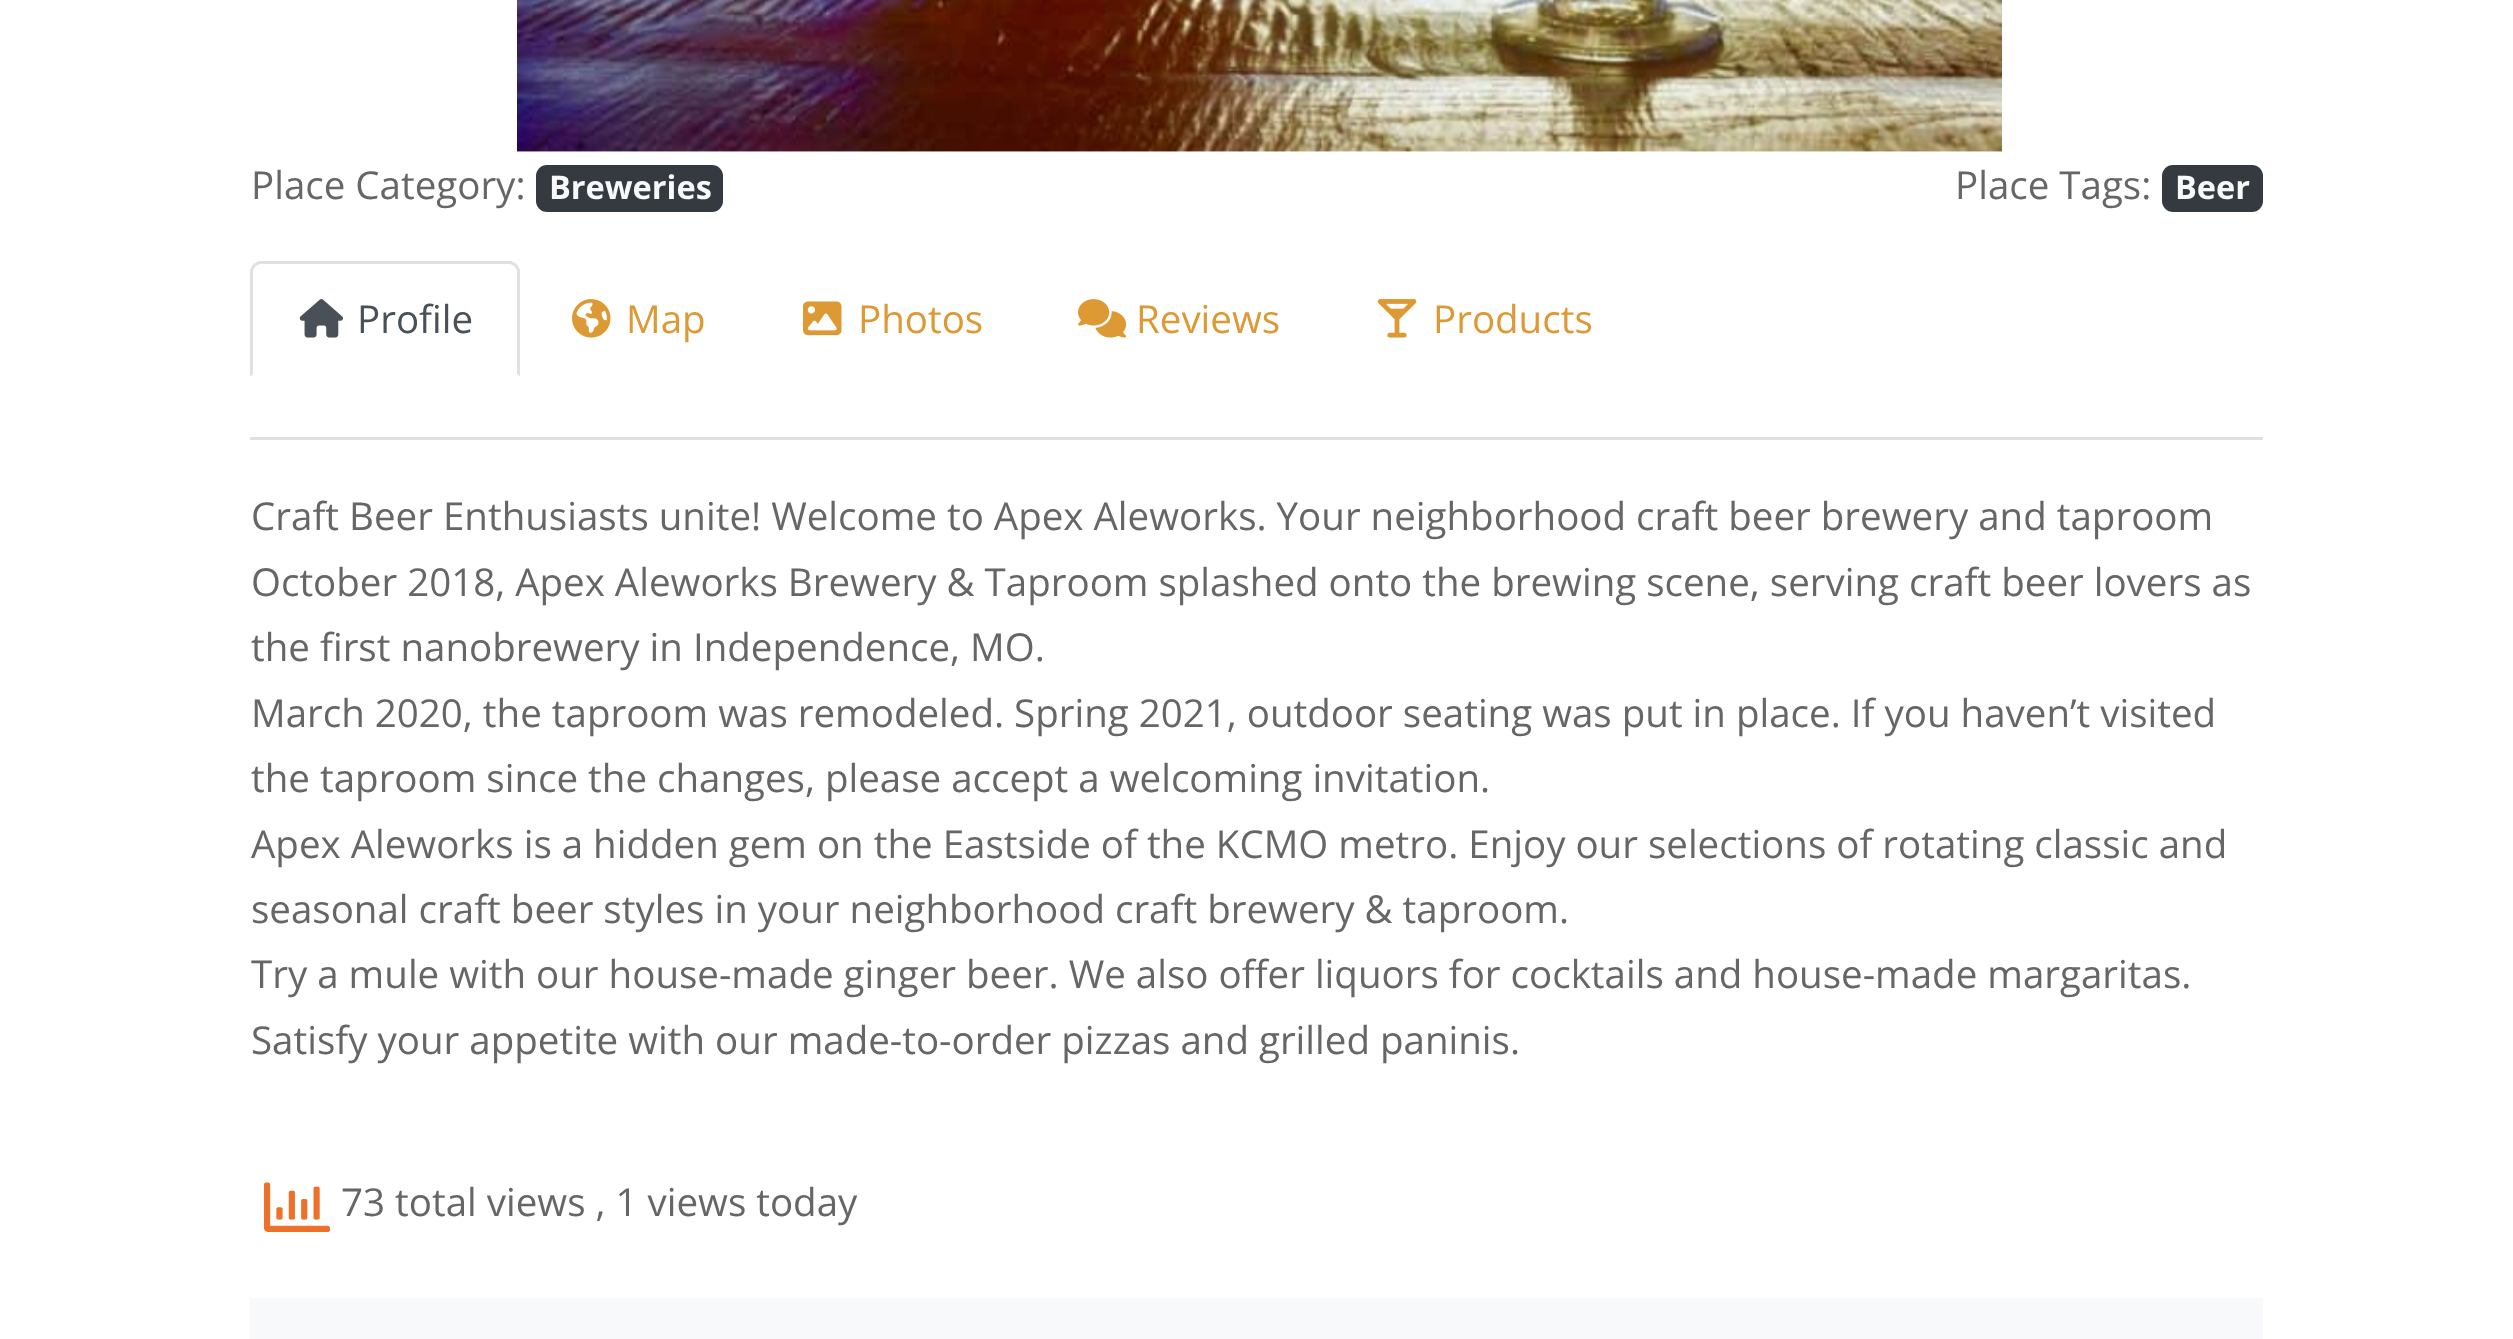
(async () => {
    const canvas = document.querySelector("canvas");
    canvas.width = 2513;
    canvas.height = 1339;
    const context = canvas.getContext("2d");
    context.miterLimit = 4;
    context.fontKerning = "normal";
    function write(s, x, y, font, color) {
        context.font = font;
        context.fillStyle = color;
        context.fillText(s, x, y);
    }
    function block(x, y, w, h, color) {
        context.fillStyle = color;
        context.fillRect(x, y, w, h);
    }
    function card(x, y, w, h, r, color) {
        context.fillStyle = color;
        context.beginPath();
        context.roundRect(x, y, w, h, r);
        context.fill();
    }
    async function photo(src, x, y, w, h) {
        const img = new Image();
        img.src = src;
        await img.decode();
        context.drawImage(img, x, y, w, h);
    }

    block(0, 0, 2513, 1339, "rgb(255, 255, 255)");
    await photo("media/1.png", 517, 0, 1485, 152);
    write("Place Category:", 251, 199, "38.5px Open Sans", "rgb(102, 102, 102)");
    card(536, 165, 187, 47, 11, "rgb(52, 58, 64)");
    write("Breweries", 549, 199, "bold 32.5px Open Sans", "rgb(248, 249, 250)");
    write("Place Tags:", 1955, 199, "38.5px Open Sans", "rgb(102, 102, 102)");
    card(2162, 165, 101, 47, 11, "rgb(52, 58, 64)");
    write("Beer", 2175, 199, "bold 32.5px Open Sans", "rgb(248, 249, 250)");
    block(250, 437, 2013, 3, "rgb(222, 226, 230)");
    context.beginPath();
    context.moveTo(261, 264);
    context.bezierCurveTo(259, 264, 257, 265, 256, 266);
    context.lineTo(253, 264);
    context.bezierCurveTo(255, 263, 257, 262, 259, 261);
    context.lineTo(511, 261);
    context.bezierCurveTo(513, 262, 515, 263, 517, 264);
    context.lineTo(514, 266);
    context.bezierCurveTo(513, 265, 511, 264, 509, 264);
    context.closePath();
    context.fill();
    context.beginPath();
    context.moveTo(517, 264);
    context.bezierCurveTo(518, 266, 519, 268, 520, 270);
    context.lineTo(520, 377);
    context.lineTo(517, 374);
    context.lineTo(517, 272);
    context.bezierCurveTo(517, 270, 516, 268, 514, 266);
    context.closePath();
    context.fill();
    context.fillStyle = "rgb(255, 255, 255)";
    context.beginPath();
    context.moveTo(520, 377);
    context.lineTo(517, 374);
    context.lineTo(253, 374);
    context.lineTo(250, 377);
    context.closePath();
    context.fill();
    context.fillStyle = "rgb(222, 226, 230)";
    context.beginPath();
    context.moveTo(250, 377);
    context.lineTo(250, 270);
    context.bezierCurveTo(251, 268, 252, 266, 253, 264);
    context.lineTo(256, 266);
    context.bezierCurveTo(254, 268, 253, 270, 253, 272);
    context.lineTo(253, 374);
    context.closePath();
    context.fill();
    await photo("media/2.png", 299, 299, 44, 39);
    write("Profile", 357, 333, "38.5px Open Sans", "rgb(73, 80, 87)");
    await photo("media/3.png", 572, 299, 39, 39);
    write("Map", 626, 333, "38.5px Open Sans", "rgb(221, 153, 51)");
    await photo("media/4.png", 803, 301, 39, 35);
    write("Photos", 858, 333, "38.5px Open Sans", "rgb(221, 153, 51)");
    await photo("media/5.png", 1078, 299, 49, 39);
    write("Reviews", 1136, 333, "38.5px Open Sans", "rgb(221, 153, 51)");
    await photo("media/6.png", 1377, 299, 40, 39);
    write("Products", 1433, 333, "38.5px Open Sans", "rgb(221, 153, 51)");
    write("Craft Beer Enthusiasts unite! Welcome to Apex Aleworks. Your neighborhood craft beer brewery and taproom", 251, 530, "38.5px Open Sans", "rgb(102, 102, 102)");
    write("October 2018, Apex Aleworks Brewery & Taproom splashed onto the brewing scene, serving craft beer lovers as", 251, 596, "38.5px Open Sans", "rgb(102, 102, 102)");
    write("the first nanobrewery in Independence, MO.", 251, 661, "38.5px Open Sans", "rgb(102, 102, 102)");
    write("March 2020, the taproom was remodeled. Spring 2021, outdoor seating was put in place. If you haven’t visited", 251, 727, "38.5px Open Sans", "rgb(102, 102, 102)");
    write("the taproom since the changes, please accept a welcoming invitation.", 251, 792, "38.5px Open Sans", "rgb(102, 102, 102)");
    write("Apex Aleworks is a hidden gem on the Eastside of the KCMO metro. Enjoy our selections of rotating classic and", 251, 858, "38.5px Open Sans", "rgb(102, 102, 102)");
    write("seasonal craft beer styles in your neighborhood craft brewery & taproom.", 251, 923, "38.5px Open Sans", "rgb(102, 102, 102)");
    write("Try a mule with our house-made ginger beer. We also offer liquors for cocktails and house-made margaritas.", 251, 988, "38.5px Open Sans", "rgb(102, 102, 102)");
    write("Satisfy your appetite with our made-to-order pizzas and grilled paninis.", 251, 1054, "38.5px Open Sans", "rgb(102, 102, 102)");
    await photo("media/7.png", 264, 1182, 66, 50);
    write("73 total views , 1 views today", 341, 1216, "38.5px Open Sans", "rgb(102, 102, 102)");
    block(250, 1298, 2013, 41, "rgb(248, 249, 250)");
})();
